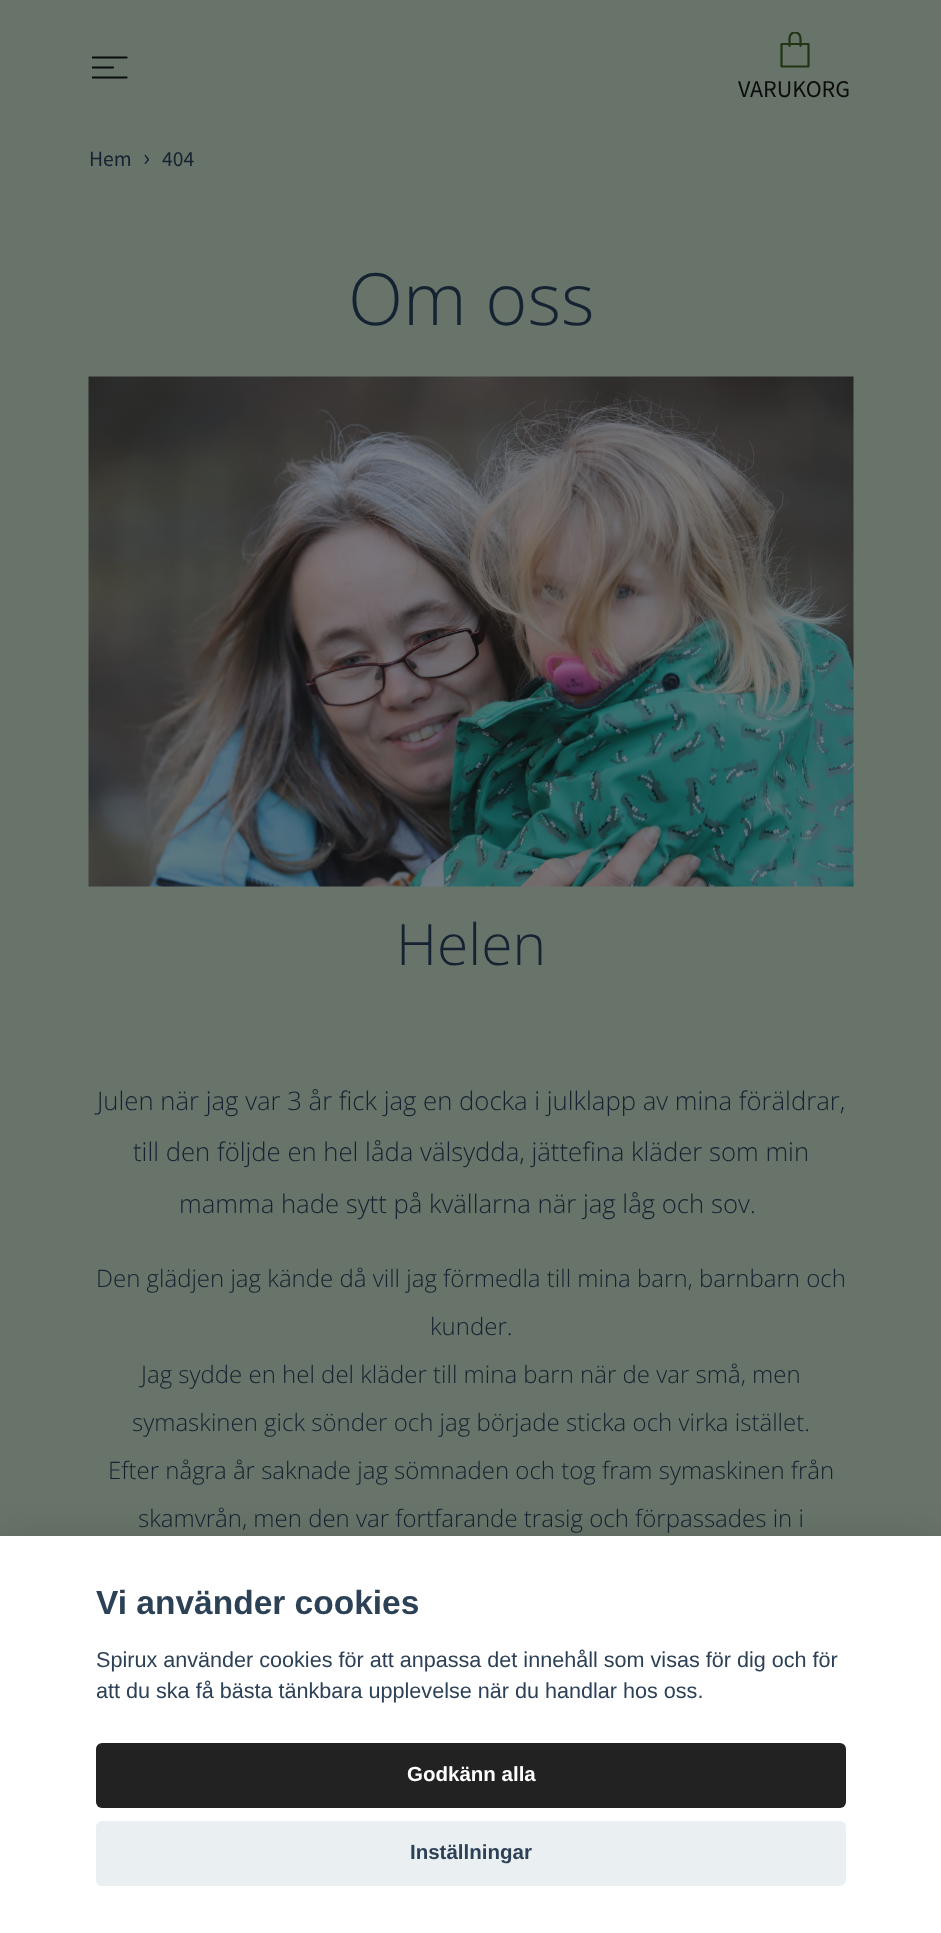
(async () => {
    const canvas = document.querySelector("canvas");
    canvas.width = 941;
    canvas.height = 1933;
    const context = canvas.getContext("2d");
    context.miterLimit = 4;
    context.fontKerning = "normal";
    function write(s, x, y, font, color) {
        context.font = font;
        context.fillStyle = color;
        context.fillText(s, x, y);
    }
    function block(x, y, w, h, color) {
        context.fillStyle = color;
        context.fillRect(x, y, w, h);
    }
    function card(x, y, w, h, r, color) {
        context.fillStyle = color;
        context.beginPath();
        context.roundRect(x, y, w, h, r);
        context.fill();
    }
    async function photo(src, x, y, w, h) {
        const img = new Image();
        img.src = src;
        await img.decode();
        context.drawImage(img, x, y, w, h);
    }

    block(0, 0, 941, 1933, "rgb(104, 116, 106)");
    context.save();
    context.beginPath();
    context.rect(92, 50, 36, 36);
    context.clip();
    context.beginPath();
    context.moveTo(92.5, 57.5);
    context.lineTo(126.5, 57.5);
    context.moveTo(92.5, 67.5);
    context.lineTo(113, 67.5);
    context.moveTo(92.5, 77.5);
    context.lineTo(126.5, 77.5);
    context.strokeStyle = "rgb(11, 12, 12)";
    context.lineWidth = 2.2;
    context.lineCap = "round";
    context.lineJoin = "round";
    context.stroke();
    context.restore();
    context.beginPath();
    context.moveTo(781.5, 44);
    context.lineTo(808.5, 44);
    context.lineTo(808.5, 66.5);
    context.lineTo(781.5, 66.5);
    context.closePath();
    context.strokeStyle = "rgb(33, 53, 19)";
    context.lineWidth = 2.2;
    context.lineCap = "round";
    context.lineJoin = "round";
    context.stroke();
    context.save();
    context.beginPath();
    context.rect(777, 32, 36, 36);
    context.clip();
    context.beginPath();
    context.moveTo(789.5, 46);
    context.lineTo(789.5, 38);
    context.bezierCurveTo(789.5, 35, 792, 32.5, 795, 32.5);
    context.bezierCurveTo(798, 32.5, 800.5, 35, 800.5, 38);
    context.lineTo(800.5, 46);
    context.stroke();
    context.restore();
    write("VARUKORG", 738, 97, "24px Source Sans Pro", "rgb(11, 12, 12)");
    write("Hem", 89, 166, "21.6px Source Sans Pro", "rgb(20, 34, 49)");
    write("›", 143, 166, "26px Source Sans Pro", "rgb(20, 34, 49)");
    write("404", 162, 166, "21.6px Source Sans Pro", "rgb(20, 34, 49)");
    write("Om oss", 348, 325, "300 72px Open Sans", "rgb(20, 34, 49)");
    await photo("media/1.png", 88, 376, 766, 511);
    write("Helen", 396, 965, "300 57px Open Sans", "rgb(20, 34, 49)");
    write("Julen när jag var 3 år fick jag en docka i julklapp av mina föräldrar,", 97, 1110, "300 25.7px Open Sans", "rgb(20, 34, 49)");
    write("till den följde en hel låda välsydda, jättefina kläder som min", 133, 1161, "300 25.7px Open Sans", "rgb(20, 34, 49)");
    write("mamma hade sytt på kvällarna när jag låg och sov.", 179, 1213, "300 25.7px Open Sans", "rgb(20, 34, 49)");
    write("Den glädjen jag kände då vill jag förmedla till mina barn, barnbarn och", 96, 1287, "300 24px Open Sans", "rgb(20, 34, 49)");
    write("kunder.", 430, 1335, "300 24px Open Sans", "rgb(20, 34, 49)");
    write("Jag sydde en hel del kläder till mina barn när de var små, men", 141, 1383, "300 24px Open Sans", "rgb(20, 34, 49)");
    write("symaskinen gick sönder och jag började sticka och virka istället.", 132, 1431, "300 24px Open Sans", "rgb(20, 34, 49)");
    write("Efter några år saknade jag sömnaden och tog fram symaskinen från", 108, 1479, "300 24px Open Sans", "rgb(20, 34, 49)");
    write("skamvrån, men den var fortfarande trasig och förpassades in i", 138, 1527, "300 24px Open Sans", "rgb(20, 34, 49)");
    context.fillStyle = "rgba(2, 2, 3, 0.28)";
    context.filter = "blur(22.5px)";
    context.beginPath();
    context.rect(0, 1551, 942, 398);
    context.fill();
    context.filter = "none";
    block(0, 1536, 941, 397, "rgb(255, 255, 255)");
    write("Vi använder cookies", 96, 1614, "bold 33.5px Liberation Sans", "rgb(45, 65, 86)");
    write("Spirux använder cookies för att anpassa det innehåll som visas för dig och för", 96, 1667, "21.6px Liberation Sans", "rgb(45, 65, 86)");
    write("att du ska få bästa tänkbara upplevelse när du handlar hos oss.", 96, 1698, "21.6px Liberation Sans", "rgb(45, 65, 86)");
    card(96, 1743, 750, 65, 6, "rgb(34, 34, 34)");
    write("Godkänn alla", 407, 1781, "bold 20.5px Liberation Sans", "rgb(255, 255, 255)");
    card(96, 1821, 750, 65, 6, "rgb(234, 239, 242)");
    write("Inställningar", 410, 1859, "bold 20.5px Liberation Sans", "rgb(45, 65, 86)");
})();
